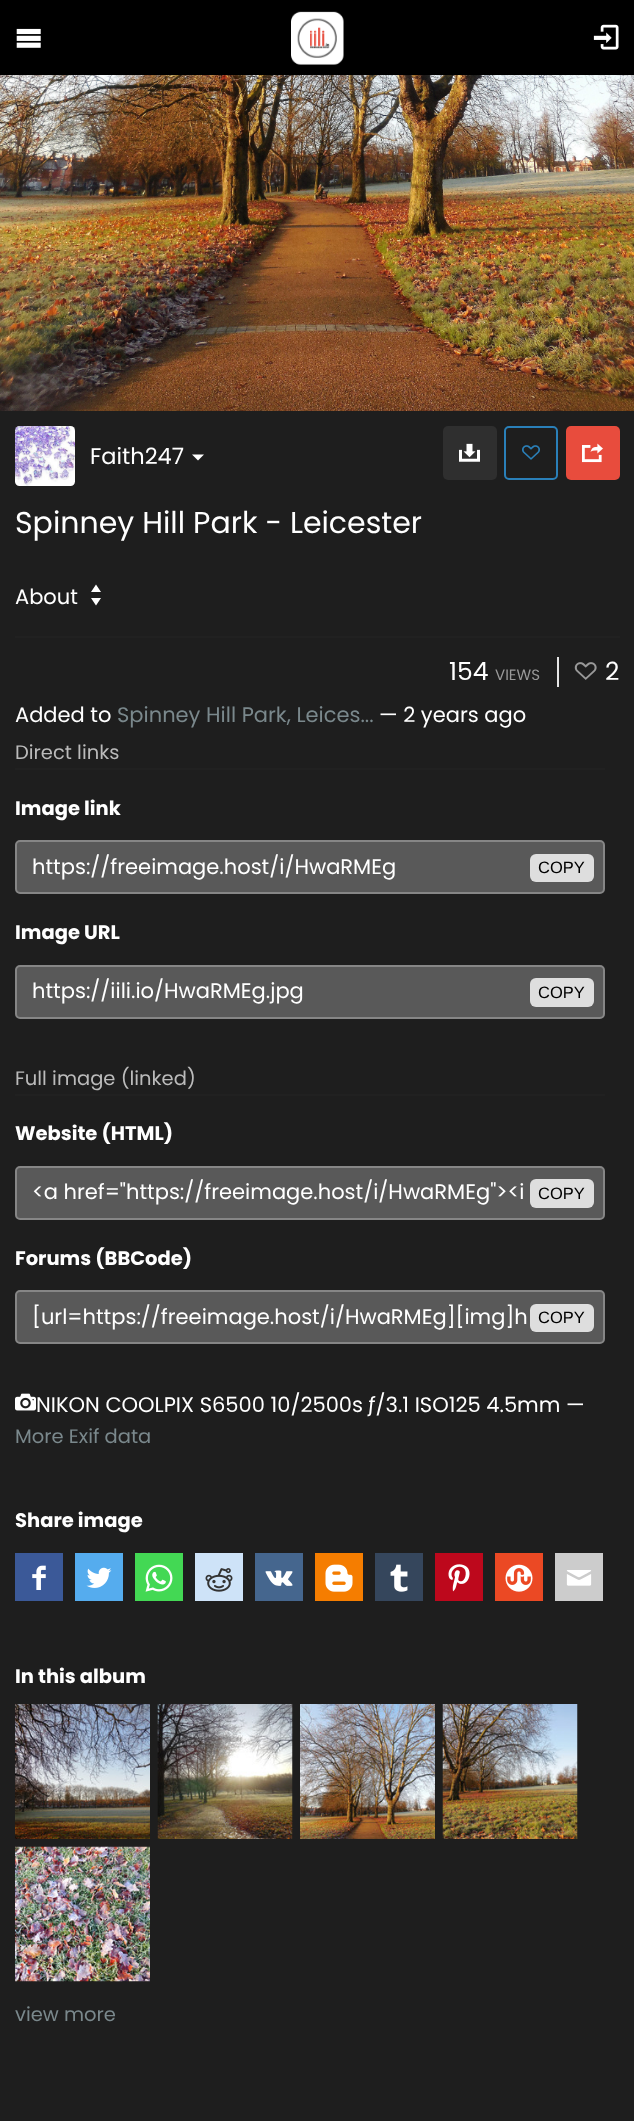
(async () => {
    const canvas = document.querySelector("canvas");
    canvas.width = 634;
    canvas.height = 2121;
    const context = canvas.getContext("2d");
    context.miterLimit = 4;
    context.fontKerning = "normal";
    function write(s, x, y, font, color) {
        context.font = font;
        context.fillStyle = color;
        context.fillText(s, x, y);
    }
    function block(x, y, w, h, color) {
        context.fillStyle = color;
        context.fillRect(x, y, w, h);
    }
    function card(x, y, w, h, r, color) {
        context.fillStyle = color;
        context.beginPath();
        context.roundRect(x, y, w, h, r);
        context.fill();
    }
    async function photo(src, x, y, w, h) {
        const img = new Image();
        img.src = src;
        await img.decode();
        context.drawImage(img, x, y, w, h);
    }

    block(0, 0, 634, 2121, "rgb(30, 30, 30)");
    block(0, 0, 634, 75, "rgb(0, 0, 0)");
    await photo("media/1.png", 16, 28, 25, 20);
    await photo("media/2.png", 291, 11, 53, 54);
    await photo("media/3.png", 593, 24, 26, 26);
    await photo("media/4.png", 0, 75, 634, 336);
    await photo("media/5.png", 15, 426, 60, 60);
    write("Faith247", 90, 464, "22.5px Poppins", "rgb(255, 255, 255)");
    context.beginPath();
    context.moveTo(192, 454.5);
    context.lineTo(204, 454.5);
    context.lineTo(198, 460.5);
    context.closePath();
    context.fill();
    card(443, 426, 54, 54, 5, "rgb(47, 47, 47)");
    await photo("media/6.png", 459, 443, 21, 19);
    context.beginPath();
    context.roundRect(505, 427, 52, 52, 4);
    context.strokeStyle = "rgb(42, 128, 185)";
    context.lineWidth = 2;
    context.stroke();
    await photo("media/7.png", 522, 445, 18, 15);
    card(566, 426, 54, 54, 5, "rgb(232, 76, 61)");
    await photo("media/8.png", 582, 443, 21, 20);
    write("Spinney Hill Park - Leicester", 15, 533, "30px Poppins", "rgb(255, 255, 255)");
    block(15, 636, 605, 2, "rgb(33, 33, 33)");
    write("About", 15, 604, "21px Poppins", "rgb(255, 255, 255)");
    context.beginPath();
    context.moveTo(96, 584.5);
    context.lineTo(91, 592);
    context.lineTo(101, 592);
    context.closePath();
    context.moveTo(96, 605.5);
    context.lineTo(101, 598);
    context.lineTo(91, 598);
    context.closePath();
    context.fill();
    write("154", 449, 680, "25px Poppins", "rgb(255, 255, 255)");
    write("VIEWS", 495, 680, "15px Poppins", "rgb(153, 153, 153)");
    block(557, 657, 2, 30, "rgb(229, 229, 229)");
    await photo("media/9.png", 574, 662, 23, 18);
    write("2", 605, 680, "25px Poppins", "rgb(255, 255, 255)");
    write("Added to", 15, 722, "21px Poppins", "rgb(255, 255, 255)");
    write("Spinney Hill Park, Leices...", 117, 722, "21px Poppins", "rgb(122, 136, 140)");
    write("— 2 years ago", 379, 722, "21px Poppins", "rgb(255, 255, 255)");
    block(15, 768, 590, 2, "rgb(33, 33, 33)");
    write("Direct links", 15, 759, "19.5px Poppins", "rgb(187, 187, 187)");
    write("Image link", 15, 815, "bold 19.5px Poppins", "rgb(255, 255, 255)");
    context.fillStyle = "rgb(89, 89, 89)";
    context.beginPath();
    context.roundRect(16, 841, 588, 52, 4);
    context.fill();
    context.strokeStyle = "rgb(134, 134, 134)";
    context.stroke();
    write("https://freeimage.host/i/HwaRMEg", 32, 874, "21px Poppins", "rgb(255, 255, 255)");
    card(530, 854, 64, 28, 6, "rgb(222, 222, 222)");
    write("COPY", 538, 873, "16.5px Liberation Sans", "rgb(0, 0, 0)");
    write("Image URL", 15, 939, "bold 19.5px Poppins", "rgb(255, 255, 255)");
    context.fillStyle = "rgb(89, 89, 89)";
    context.beginPath();
    context.roundRect(16, 966, 588, 52, 4);
    context.fill();
    context.stroke();
    write("https://iili.io/HwaRMEg.jpg", 32, 998, "21px Poppins", "rgb(255, 255, 255)");
    card(530, 978, 64, 29, 6, "rgb(222, 222, 222)");
    write("COPY", 538, 998, "16.5px Liberation Sans", "rgb(0, 0, 0)");
    block(15, 1094, 590, 2, "rgb(33, 33, 33)");
    write("Full image (linked)", 15, 1085, "19.5px Poppins", "rgb(187, 187, 187)");
    write("Website (HTML)", 15, 1140, "bold 19.5px Poppins", "rgb(255, 255, 255)");
    context.fillStyle = "rgb(89, 89, 89)";
    context.beginPath();
    context.roundRect(16, 1167, 588, 52, 4);
    context.fill();
    context.stroke();
    write("<a href=\"https://freeimage.host/i/HwaRMEg\"><i", 32, 1199, "21px Poppins", "rgb(255, 255, 255)");
    card(530, 1179, 64, 29, 6, "rgb(222, 222, 222)");
    write("COPY", 538, 1199, "16.5px Liberation Sans", "rgb(0, 0, 0)");
    write("Forums (BBCode)", 15, 1265, "bold 19.5px Poppins", "rgb(255, 255, 255)");
    context.fillStyle = "rgb(89, 89, 89)";
    context.beginPath();
    context.roundRect(16, 1291, 588, 52, 4);
    context.fill();
    context.stroke();
    write("[url=https://freeimage.host/i/HwaRMEg][img]h", 32, 1324, "21px Poppins", "rgb(255, 255, 255)");
    card(530, 1304, 64, 28, 6, "rgb(222, 222, 222)");
    write("COPY", 538, 1323, "16.5px Liberation Sans", "rgb(0, 0, 0)");
    await photo("media/10.png", 15, 1393, 21, 18);
    write("NIKON COOLPIX S6500 10/2500s ƒ/3.1 ISO125 4.5mm —", 36, 1412, "21px Poppins", "rgb(255, 255, 255)");
    write("More Exif data", 15, 1443, "19.5px Poppins", "rgb(122, 136, 140)");
    write("Share image", 15, 1527, "bold 19.5px Poppins", "rgb(255, 255, 255)");
    block(15, 1553, 48, 48, "rgb(59, 89, 152)");
    await photo("media/11.png", 32, 1565, 14, 25);
    block(75, 1553, 48, 48, "rgb(85, 172, 238)");
    await photo("media/12.png", 86, 1567, 26, 21);
    block(135, 1553, 48, 48, "rgb(67, 216, 84)");
    await photo("media/13.png", 145, 1564, 28, 28);
    block(195, 1553, 48, 48, "rgb(206, 227, 248)");
    await photo("media/14.png", 205, 1568, 28, 24);
    block(255, 1553, 48, 48, "rgb(69, 102, 142)");
    await photo("media/15.png", 265, 1570, 28, 16);
    block(315, 1553, 48, 48, "rgb(245, 125, 0)");
    await photo("media/16.png", 325, 1564, 28, 28);
    block(375, 1553, 48, 48, "rgb(53, 70, 92)");
    await photo("media/17.png", 390, 1564, 18, 28);
    block(435, 1553, 48, 48, "rgb(189, 8, 28)");
    await photo("media/18.png", 448, 1564, 22, 28);
    block(495, 1553, 48, 48, "rgb(235, 73, 36)");
    await photo("media/19.png", 505, 1564, 28, 28);
    block(555, 1553, 48, 48, "rgb(204, 204, 204)");
    await photo("media/20.png", 566, 1570, 26, 16);
    write("In this album", 15, 1683, "bold 19.5px Poppins", "rgb(255, 255, 255)");
    await photo("media/21.png", 15, 1704, 135, 135);
    await photo("media/22.png", 157, 1704, 136, 135);
    await photo("media/23.png", 300, 1704, 135, 135);
    await photo("media/24.png", 442, 1704, 136, 135);
    await photo("media/25.png", 15, 1846, 135, 136);
    write("view more", 15, 2021, "19.5px Poppins", "rgb(122, 136, 140)");
})();
